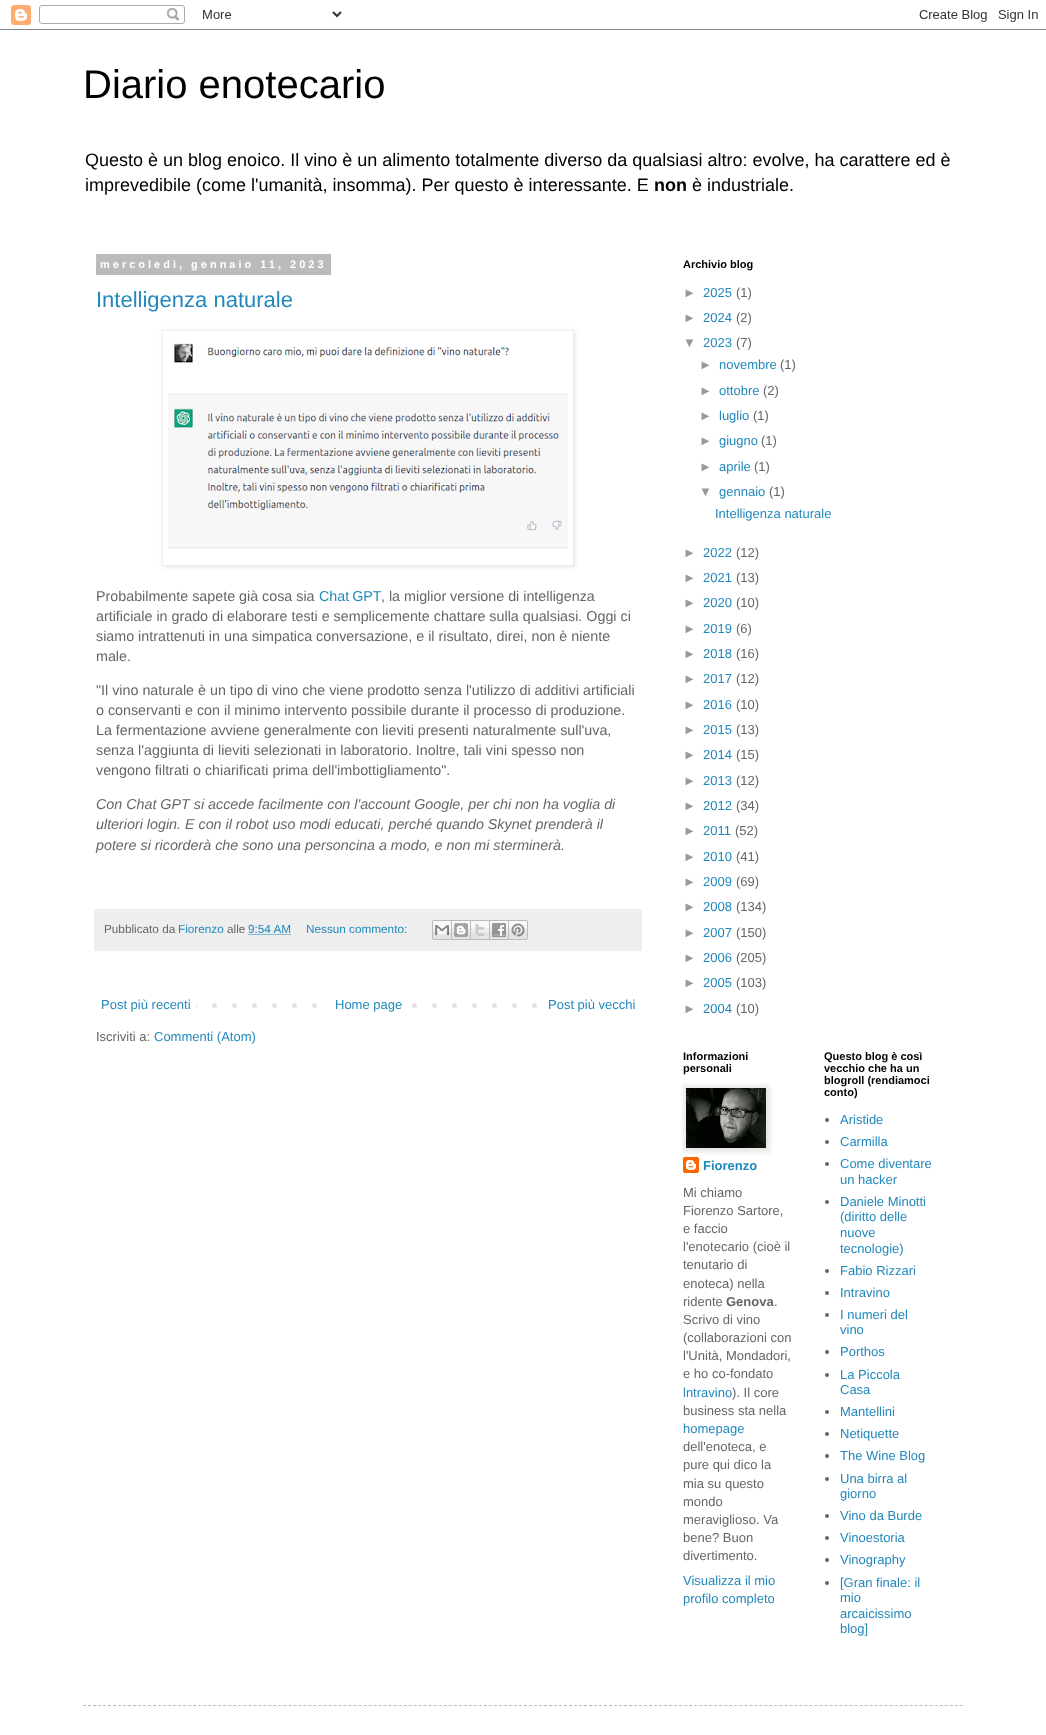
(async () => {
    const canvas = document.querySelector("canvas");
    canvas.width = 1046;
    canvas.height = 1735;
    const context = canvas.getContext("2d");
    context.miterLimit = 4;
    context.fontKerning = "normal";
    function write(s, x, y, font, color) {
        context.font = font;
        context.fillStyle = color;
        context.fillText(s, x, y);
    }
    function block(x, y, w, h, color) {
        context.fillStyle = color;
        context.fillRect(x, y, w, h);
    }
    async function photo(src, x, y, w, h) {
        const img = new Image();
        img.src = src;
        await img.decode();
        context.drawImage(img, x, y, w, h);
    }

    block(0, 0, 1046, 1735, "rgb(255, 255, 255)");
    await photo("media/1.png", 0, 5, 1046, 25);
    write("Diario enotecario", 83, 98, "40px Liberation Sans", "rgb(0, 0, 0)");
    write("Questo è un blog enoico. Il vino è un alimento totalmente diverso da qualsiasi altro: evolve, ha carattere ed è", 85, 166, "18px Liberation Sans", "rgb(0, 0, 0)");
    write("imprevedibile (come l'umanità, insomma). Per questo è interessante. E", 85, 191, "18px Liberation Sans", "rgb(0, 0, 0)");
    write("non", 654, 191, "bold 18px Liberation Sans", "rgb(0, 0, 0)");
    write("è industriale.", 692, 191, "18px Liberation Sans", "rgb(0, 0, 0)");
    block(96, 254, 235, 21, "rgb(187, 187, 187)");
    context.letterSpacing = "3px";
    write("mercoledì, gennaio 11, 2023", 100, 268, "bold 11px Liberation Sans", "rgb(255, 255, 255)");
    context.letterSpacing = "0px";
    write("Intelligenza naturale", 96, 307, "22px Liberation Sans", "rgb(34, 136, 187)");
    context.save();
    context.beginPath();
    context.moveTo(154, 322);
    context.lineTo(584, 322);
    context.lineTo(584, 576);
    context.lineTo(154, 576);
    context.closePath();
    context.moveTo(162, 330);
    context.lineTo(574, 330);
    context.lineTo(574, 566);
    context.lineTo(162, 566);
    context.closePath();
    context.clip("evenodd");
    context.fillStyle = "rgba(0, 0, 0, 0.1)";
    context.filter = "blur(2.5px)";
    context.beginPath();
    context.rect(163, 331, 412, 236);
    context.fill();
    context.filter = "none";
    context.restore();
    context.strokeStyle = "rgb(238, 238, 238)";
    context.strokeRect(162.5, 330.5, 411, 235);
    await photo("media/2.png", 168, 343, 400, 206);
    write("Probabilmente sapete già cosa sia", 96, 601, "14.3px Liberation Sans", "rgb(102, 102, 102)");
    context.wordSpacing = "-1px";
    write("Chat GPT", 319, 601, "14.3px Liberation Sans", "rgb(34, 136, 187)");
    context.wordSpacing = "0px";
    write(", la miglior versione di intelligenza", 381, 601, "14.3px Liberation Sans", "rgb(102, 102, 102)");
    write("artificiale in grado di elaborare testi e semplicemente chattare sulla qualsiasi. Oggi ci", 96, 621, "14.3px Liberation Sans", "rgb(102, 102, 102)");
    write("siamo intrattenuti in una simpatica conversazione, e il risultato, direi, non è niente", 96, 641, "14.3px Liberation Sans", "rgb(102, 102, 102)");
    write("male.", 96, 661, "14.3px Liberation Sans", "rgb(102, 102, 102)");
    write("\"Il vino naturale è un tipo di vino che viene prodotto senza l'utilizzo di additivi artificiali", 96, 695, "14.3px Liberation Sans", "rgb(102, 102, 102)");
    write("o conservanti e con il minimo intervento possibile durante il processo di produzione.", 96, 715, "14.3px Liberation Sans", "rgb(102, 102, 102)");
    write("La fermentazione avviene generalmente con lieviti presenti naturalmente sull'uva,", 96, 735, "14.3px Liberation Sans", "rgb(102, 102, 102)");
    write("senza l'aggiunta di lieviti selezionati in laboratorio. Inoltre, tali vini spesso non", 96, 755, "14.3px Liberation Sans", "rgb(102, 102, 102)");
    write("vengono filtrati o chiarificati prima dell'imbottigliamento\".", 96, 775, "14.3px Liberation Sans", "rgb(102, 102, 102)");
    write("Con Chat GPT si accede facilmente con l'account Google, per chi non ha voglia di", 96, 809, "italic 14.3px Liberation Sans", "rgb(102, 102, 102)");
    write("ulteriori login. E con il robot uso modi educati, perché quando Skynet prenderà il", 96, 829, "italic 14.3px Liberation Sans", "rgb(102, 102, 102)");
    write("potere si ricorderà che sono una personcina a modo, e non mi sterminerà.", 96, 850, "italic 14.3px Liberation Sans", "rgb(102, 102, 102)");
    block(94, 909, 548, 42, "rgb(238, 238, 238)");
    write("Pubblicato da", 104, 933, "11.75px Liberation Sans", "rgb(102, 102, 102)");
    write("Fiorenzo", 178, 933, "11.75px Liberation Sans", "rgb(34, 136, 187)");
    write("alle", 227, 933, "11.75px Liberation Sans", "rgb(102, 102, 102)");
    write("9:54 AM", 248, 933, "11.75px Liberation Sans", "rgb(34, 136, 187)");
    context.beginPath();
    context.moveTo(248.5, 934.5);
    context.lineTo(291, 934.5);
    context.strokeStyle = "rgb(34, 136, 187)";
    context.setLineDash([1, 1]);
    context.stroke();
    write("Nessun commento:", 306, 933, "11.75px Liberation Sans", "rgb(34, 136, 187)");
    await photo("media/3.png", 432, 920, 20, 20);
    await photo("media/4.png", 452, 920, 19, 20);
    await photo("media/5.png", 471, 920, 19, 20);
    await photo("media/6.png", 490, 920, 19, 20);
    await photo("media/7.png", 509, 920, 19, 20);
    await photo("media/8.png", 196, 1003, 341, 5);
    write("Post più recenti", 101, 1009, "13px Liberation Sans", "rgb(34, 136, 187)");
    block(332, 1003, 66, 5, "rgb(255, 255, 255)");
    write("Home page", 335, 1009, "13px Liberation Sans", "rgb(34, 136, 187)");
    write("Post più vecchi", 548, 1009, "13px Liberation Sans", "rgb(34, 136, 187)");
    write("Iscriviti a:", 96, 1041, "13px Liberation Sans", "rgb(102, 102, 102)");
    write("Commenti (Atom)", 154, 1041, "13px Liberation Sans", "rgb(34, 136, 187)");
    write("Archivio blog", 683, 268, "bold 11px Liberation Sans", "rgb(0, 0, 0)");
    write("►", 683, 297, "13px Liberation Sans", "rgb(153, 153, 153)");
    write("2025", 703, 297, "13px Liberation Sans", "rgb(34, 136, 187)");
    write("(1)", 736, 297, "13px Liberation Sans", "rgb(102, 102, 102)");
    write("►", 683, 322, "13px Liberation Sans", "rgb(153, 153, 153)");
    write("2024", 703, 322, "13px Liberation Sans", "rgb(34, 136, 187)");
    write("(2)", 736, 322, "13px Liberation Sans", "rgb(102, 102, 102)");
    write("▼", 683, 347, "13px Liberation Sans", "rgb(153, 153, 153)");
    write("2023", 703, 347, "13px Liberation Sans", "rgb(34, 136, 187)");
    write("(7)", 736, 347, "13px Liberation Sans", "rgb(102, 102, 102)");
    write("►", 699, 369, "13px Liberation Sans", "rgb(153, 153, 153)");
    write("novembre", 719, 369, "13px Liberation Sans", "rgb(34, 136, 187)");
    write("(1)", 780, 369, "13px Liberation Sans", "rgb(102, 102, 102)");
    write("►", 699, 395, "13px Liberation Sans", "rgb(153, 153, 153)");
    write("ottobre", 719, 395, "13px Liberation Sans", "rgb(34, 136, 187)");
    write("(2)", 763, 395, "13px Liberation Sans", "rgb(102, 102, 102)");
    write("►", 699, 420, "13px Liberation Sans", "rgb(153, 153, 153)");
    write("luglio", 719, 420, "13px Liberation Sans", "rgb(34, 136, 187)");
    write("(1)", 753, 420, "13px Liberation Sans", "rgb(102, 102, 102)");
    write("►", 699, 445, "13px Liberation Sans", "rgb(153, 153, 153)");
    write("giugno", 719, 445, "13px Liberation Sans", "rgb(34, 136, 187)");
    write("(1)", 761, 445, "13px Liberation Sans", "rgb(102, 102, 102)");
    write("►", 699, 471, "13px Liberation Sans", "rgb(153, 153, 153)");
    write("aprile", 719, 471, "13px Liberation Sans", "rgb(34, 136, 187)");
    write("(1)", 754, 471, "13px Liberation Sans", "rgb(102, 102, 102)");
    write("▼", 699, 496, "13px Liberation Sans", "rgb(153, 153, 153)");
    write("gennaio", 719, 496, "13px Liberation Sans", "rgb(34, 136, 187)");
    write("(1)", 769, 496, "13px Liberation Sans", "rgb(102, 102, 102)");
    write("Intelligenza naturale", 715, 518, "13px Liberation Sans", "rgb(34, 136, 187)");
    write("►", 683, 557, "13px Liberation Sans", "rgb(153, 153, 153)");
    write("2022", 703, 557, "13px Liberation Sans", "rgb(34, 136, 187)");
    write("(12)", 736, 557, "13px Liberation Sans", "rgb(102, 102, 102)");
    write("►", 683, 582, "13px Liberation Sans", "rgb(153, 153, 153)");
    write("2021", 703, 582, "13px Liberation Sans", "rgb(34, 136, 187)");
    write("(13)", 736, 582, "13px Liberation Sans", "rgb(102, 102, 102)");
    write("►", 683, 607, "13px Liberation Sans", "rgb(153, 153, 153)");
    write("2020", 703, 607, "13px Liberation Sans", "rgb(34, 136, 187)");
    write("(10)", 736, 607, "13px Liberation Sans", "rgb(102, 102, 102)");
    write("►", 683, 633, "13px Liberation Sans", "rgb(153, 153, 153)");
    write("2019", 703, 633, "13px Liberation Sans", "rgb(34, 136, 187)");
    write("(6)", 736, 633, "13px Liberation Sans", "rgb(102, 102, 102)");
    write("►", 683, 658, "13px Liberation Sans", "rgb(153, 153, 153)");
    write("2018", 703, 658, "13px Liberation Sans", "rgb(34, 136, 187)");
    write("(16)", 736, 658, "13px Liberation Sans", "rgb(102, 102, 102)");
    write("►", 683, 683, "13px Liberation Sans", "rgb(153, 153, 153)");
    write("2017", 703, 683, "13px Liberation Sans", "rgb(34, 136, 187)");
    write("(12)", 736, 683, "13px Liberation Sans", "rgb(102, 102, 102)");
    write("►", 683, 709, "13px Liberation Sans", "rgb(153, 153, 153)");
    write("2016", 703, 709, "13px Liberation Sans", "rgb(34, 136, 187)");
    write("(10)", 736, 709, "13px Liberation Sans", "rgb(102, 102, 102)");
    write("►", 683, 734, "13px Liberation Sans", "rgb(153, 153, 153)");
    write("2015", 703, 734, "13px Liberation Sans", "rgb(34, 136, 187)");
    write("(13)", 736, 734, "13px Liberation Sans", "rgb(102, 102, 102)");
    write("►", 683, 759, "13px Liberation Sans", "rgb(153, 153, 153)");
    write("2014", 703, 759, "13px Liberation Sans", "rgb(34, 136, 187)");
    write("(15)", 736, 759, "13px Liberation Sans", "rgb(102, 102, 102)");
    write("►", 683, 785, "13px Liberation Sans", "rgb(153, 153, 153)");
    write("2013", 703, 785, "13px Liberation Sans", "rgb(34, 136, 187)");
    write("(12)", 736, 785, "13px Liberation Sans", "rgb(102, 102, 102)");
    write("►", 683, 810, "13px Liberation Sans", "rgb(153, 153, 153)");
    write("2012", 703, 810, "13px Liberation Sans", "rgb(34, 136, 187)");
    write("(34)", 736, 810, "13px Liberation Sans", "rgb(102, 102, 102)");
    write("►", 683, 835, "13px Liberation Sans", "rgb(153, 153, 153)");
    write("2011", 703, 835, "13px Liberation Sans", "rgb(34, 136, 187)");
    write("(52)", 735, 835, "13px Liberation Sans", "rgb(102, 102, 102)");
    write("►", 683, 861, "13px Liberation Sans", "rgb(153, 153, 153)");
    write("2010", 703, 861, "13px Liberation Sans", "rgb(34, 136, 187)");
    write("(41)", 736, 861, "13px Liberation Sans", "rgb(102, 102, 102)");
    write("►", 683, 886, "13px Liberation Sans", "rgb(153, 153, 153)");
    write("2009", 703, 886, "13px Liberation Sans", "rgb(34, 136, 187)");
    write("(69)", 736, 886, "13px Liberation Sans", "rgb(102, 102, 102)");
    write("►", 683, 911, "13px Liberation Sans", "rgb(153, 153, 153)");
    write("2008", 703, 911, "13px Liberation Sans", "rgb(34, 136, 187)");
    write("(134)", 736, 911, "13px Liberation Sans", "rgb(102, 102, 102)");
    write("►", 683, 937, "13px Liberation Sans", "rgb(153, 153, 153)");
    write("2007", 703, 937, "13px Liberation Sans", "rgb(34, 136, 187)");
    write("(150)", 736, 937, "13px Liberation Sans", "rgb(102, 102, 102)");
    write("►", 683, 962, "13px Liberation Sans", "rgb(153, 153, 153)");
    write("2006", 703, 962, "13px Liberation Sans", "rgb(34, 136, 187)");
    write("(205)", 736, 962, "13px Liberation Sans", "rgb(102, 102, 102)");
    write("►", 683, 987, "13px Liberation Sans", "rgb(153, 153, 153)");
    write("2005", 703, 987, "13px Liberation Sans", "rgb(34, 136, 187)");
    write("(103)", 736, 987, "13px Liberation Sans", "rgb(102, 102, 102)");
    write("►", 683, 1013, "13px Liberation Sans", "rgb(153, 153, 153)");
    write("2004", 703, 1013, "13px Liberation Sans", "rgb(34, 136, 187)");
    write("(10)", 736, 1013, "13px Liberation Sans", "rgb(102, 102, 102)");
    write("Informazioni", 683, 1060, "bold 11px Liberation Sans", "rgb(0, 0, 0)");
    write("personali", 683, 1072, "bold 11px Liberation Sans", "rgb(0, 0, 0)");
    await photo("media/10.png", 683, 1157, 16, 16);
    context.fillStyle = "rgba(0, 0, 0, 0.1)";
    context.filter = "blur(2.5px)";
    context.beginPath();
    context.rect(684, 1086, 86, 66);
    context.fill();
    context.filter = "none";
    context.strokeStyle = "rgb(238, 238, 238)";
    context.setLineDash([]);
    context.strokeRect(683.5, 1085.5, 85, 65);
    await photo("media/9.png", 686, 1088, 80, 60);
    write("Fiorenzo", 703, 1170, "bold 13px Liberation Sans", "rgb(34, 136, 187)");
    write("Mi chiamo", 683, 1197, "13px Liberation Sans", "rgb(102, 102, 102)");
    write("Fiorenzo Sartore,", 683, 1215, "13px Liberation Sans", "rgb(102, 102, 102)");
    write("e faccio", 683, 1233, "13px Liberation Sans", "rgb(102, 102, 102)");
    write("l'enotecario (cioè il", 683, 1251, "13px Liberation Sans", "rgb(102, 102, 102)");
    write("tenutario di", 683, 1269, "13px Liberation Sans", "rgb(102, 102, 102)");
    write("enoteca) nella", 683, 1288, "13px Liberation Sans", "rgb(102, 102, 102)");
    write("ridente", 683, 1306, "13px Liberation Sans", "rgb(102, 102, 102)");
    write("Genova", 726, 1306, "bold 13px Liberation Sans", "rgb(102, 102, 102)");
    write(".", 774, 1306, "13px Liberation Sans", "rgb(102, 102, 102)");
    write("Scrivo di vino", 683, 1324, "13px Liberation Sans", "rgb(102, 102, 102)");
    write("(collaborazioni con", 683, 1342, "13px Liberation Sans", "rgb(102, 102, 102)");
    write("l'Unità, Mondadori,", 683, 1360, "13px Liberation Sans", "rgb(102, 102, 102)");
    write("e ho co-fondato", 683, 1378, "13px Liberation Sans", "rgb(102, 102, 102)");
    write("lntravino", 683, 1397, "13px Liberation Sans", "rgb(34, 136, 187)");
    write("). Il core", 732, 1397, "13px Liberation Sans", "rgb(102, 102, 102)");
    write("business sta nella", 683, 1415, "13px Liberation Sans", "rgb(102, 102, 102)");
    write("homepage", 683, 1433, "13px Liberation Sans", "rgb(34, 136, 187)");
    write("dell'enoteca, e", 683, 1451, "13px Liberation Sans", "rgb(102, 102, 102)");
    write("pure qui dico la", 683, 1469, "13px Liberation Sans", "rgb(102, 102, 102)");
    write("mia su questo", 683, 1488, "13px Liberation Sans", "rgb(102, 102, 102)");
    write("mondo", 683, 1506, "13px Liberation Sans", "rgb(102, 102, 102)");
    write("meraviglioso. Va", 683, 1524, "13px Liberation Sans", "rgb(102, 102, 102)");
    write("bene? Buon", 683, 1542, "13px Liberation Sans", "rgb(102, 102, 102)");
    write("divertimento.", 683, 1560, "13px Liberation Sans", "rgb(102, 102, 102)");
    write("Visualizza il mio", 683, 1585, "13px Liberation Sans", "rgb(34, 136, 187)");
    write("profilo completo", 683, 1603, "13px Liberation Sans", "rgb(34, 136, 187)");
    write("Questo blog è così", 824, 1060, "bold 11px Liberation Sans", "rgb(0, 0, 0)");
    write("vecchio che ha un", 824, 1072, "bold 11px Liberation Sans", "rgb(0, 0, 0)");
    write("blogroll (rendiamoci", 824, 1084, "bold 11px Liberation Sans", "rgb(0, 0, 0)");
    write("conto)", 824, 1096, "bold 11px Liberation Sans", "rgb(0, 0, 0)");
    context.fillStyle = "rgb(102, 102, 102)";
    context.beginPath();
    context.arc(827, 1120, 2, 0, Math.PI * 2);
    context.fill();
    write("Aristide", 840, 1124, "13px Liberation Sans", "rgb(34, 136, 187)");
    context.fillStyle = "rgb(102, 102, 102)";
    context.beginPath();
    context.arc(827, 1142, 2, 0, Math.PI * 2);
    context.fill();
    write("Carmilla", 840, 1146, "13px Liberation Sans", "rgb(34, 136, 187)");
    context.fillStyle = "rgb(102, 102, 102)";
    context.beginPath();
    context.arc(827, 1164, 2, 0, Math.PI * 2);
    context.fill();
    write("Come diventare", 840, 1168, "13px Liberation Sans", "rgb(34, 136, 187)");
    write("un hacker", 840, 1184, "13px Liberation Sans", "rgb(34, 136, 187)");
    context.fillStyle = "rgb(102, 102, 102)";
    context.beginPath();
    context.arc(827, 1202, 2, 0, Math.PI * 2);
    context.fill();
    write("Daniele Minotti", 840, 1206, "13px Liberation Sans", "rgb(34, 136, 187)");
    write("(diritto delle", 840, 1221, "13px Liberation Sans", "rgb(34, 136, 187)");
    write("nuove", 840, 1237, "13px Liberation Sans", "rgb(34, 136, 187)");
    write("tecnologie)", 840, 1253, "13px Liberation Sans", "rgb(34, 136, 187)");
    context.fillStyle = "rgb(102, 102, 102)";
    context.beginPath();
    context.arc(827, 1271, 2, 0, Math.PI * 2);
    context.fill();
    write("Fabio Rizzari", 840, 1275, "13px Liberation Sans", "rgb(34, 136, 187)");
    context.fillStyle = "rgb(102, 102, 102)";
    context.beginPath();
    context.arc(827, 1293, 2, 0, Math.PI * 2);
    context.fill();
    write("Intravino", 840, 1297, "13px Liberation Sans", "rgb(34, 136, 187)");
    context.fillStyle = "rgb(102, 102, 102)";
    context.beginPath();
    context.arc(827, 1315, 2, 0, Math.PI * 2);
    context.fill();
    write("I numeri del", 840, 1319, "13px Liberation Sans", "rgb(34, 136, 187)");
    write("vino", 840, 1334, "13px Liberation Sans", "rgb(34, 136, 187)");
    context.fillStyle = "rgb(102, 102, 102)";
    context.beginPath();
    context.arc(827, 1352, 2, 0, Math.PI * 2);
    context.fill();
    write("Porthos", 840, 1356, "13px Liberation Sans", "rgb(34, 136, 187)");
    context.fillStyle = "rgb(102, 102, 102)";
    context.beginPath();
    context.arc(827, 1375, 2, 0, Math.PI * 2);
    context.fill();
    write("La Piccola", 840, 1379, "13px Liberation Sans", "rgb(34, 136, 187)");
    write("Casa", 840, 1394, "13px Liberation Sans", "rgb(34, 136, 187)");
    context.fillStyle = "rgb(102, 102, 102)";
    context.beginPath();
    context.arc(827, 1412, 2, 0, Math.PI * 2);
    context.fill();
    write("Mantellini", 840, 1416, "13px Liberation Sans", "rgb(34, 136, 187)");
    context.fillStyle = "rgb(102, 102, 102)";
    context.beginPath();
    context.arc(827, 1434, 2, 0, Math.PI * 2);
    context.fill();
    write("Netiquette", 840, 1438, "13px Liberation Sans", "rgb(34, 136, 187)");
    context.fillStyle = "rgb(102, 102, 102)";
    context.beginPath();
    context.arc(827, 1456, 2, 0, Math.PI * 2);
    context.fill();
    write("The Wine Blog", 840, 1460, "13px Liberation Sans", "rgb(34, 136, 187)");
    context.fillStyle = "rgb(102, 102, 102)";
    context.beginPath();
    context.arc(827, 1479, 2, 0, Math.PI * 2);
    context.fill();
    write("Una birra al", 840, 1483, "13px Liberation Sans", "rgb(34, 136, 187)");
    write("giorno", 840, 1498, "13px Liberation Sans", "rgb(34, 136, 187)");
    context.fillStyle = "rgb(102, 102, 102)";
    context.beginPath();
    context.arc(827, 1516, 2, 0, Math.PI * 2);
    context.fill();
    write("Vino da Burde", 840, 1520, "13px Liberation Sans", "rgb(34, 136, 187)");
    context.fillStyle = "rgb(102, 102, 102)";
    context.beginPath();
    context.arc(827, 1538, 2, 0, Math.PI * 2);
    context.fill();
    write("Vinoestoria", 840, 1542, "13px Liberation Sans", "rgb(34, 136, 187)");
    context.fillStyle = "rgb(102, 102, 102)";
    context.beginPath();
    context.arc(827, 1560, 2, 0, Math.PI * 2);
    context.fill();
    write("Vinography", 840, 1564, "13px Liberation Sans", "rgb(34, 136, 187)");
    context.fillStyle = "rgb(102, 102, 102)";
    context.beginPath();
    context.arc(827, 1583, 2, 0, Math.PI * 2);
    context.fill();
    write("[Gran finale: il", 840, 1587, "13px Liberation Sans", "rgb(34, 136, 187)");
    write("mio", 840, 1602, "13px Liberation Sans", "rgb(34, 136, 187)");
    write("arcaicissimo", 840, 1618, "13px Liberation Sans", "rgb(34, 136, 187)");
    write("blog]", 840, 1633, "13px Liberation Sans", "rgb(34, 136, 187)");
    context.beginPath();
    context.moveTo(83, 1705.5);
    context.lineTo(963, 1705.5);
    context.strokeStyle = "rgb(187, 187, 187)";
    context.setLineDash([3, 2.01]);
    context.stroke();
})();
